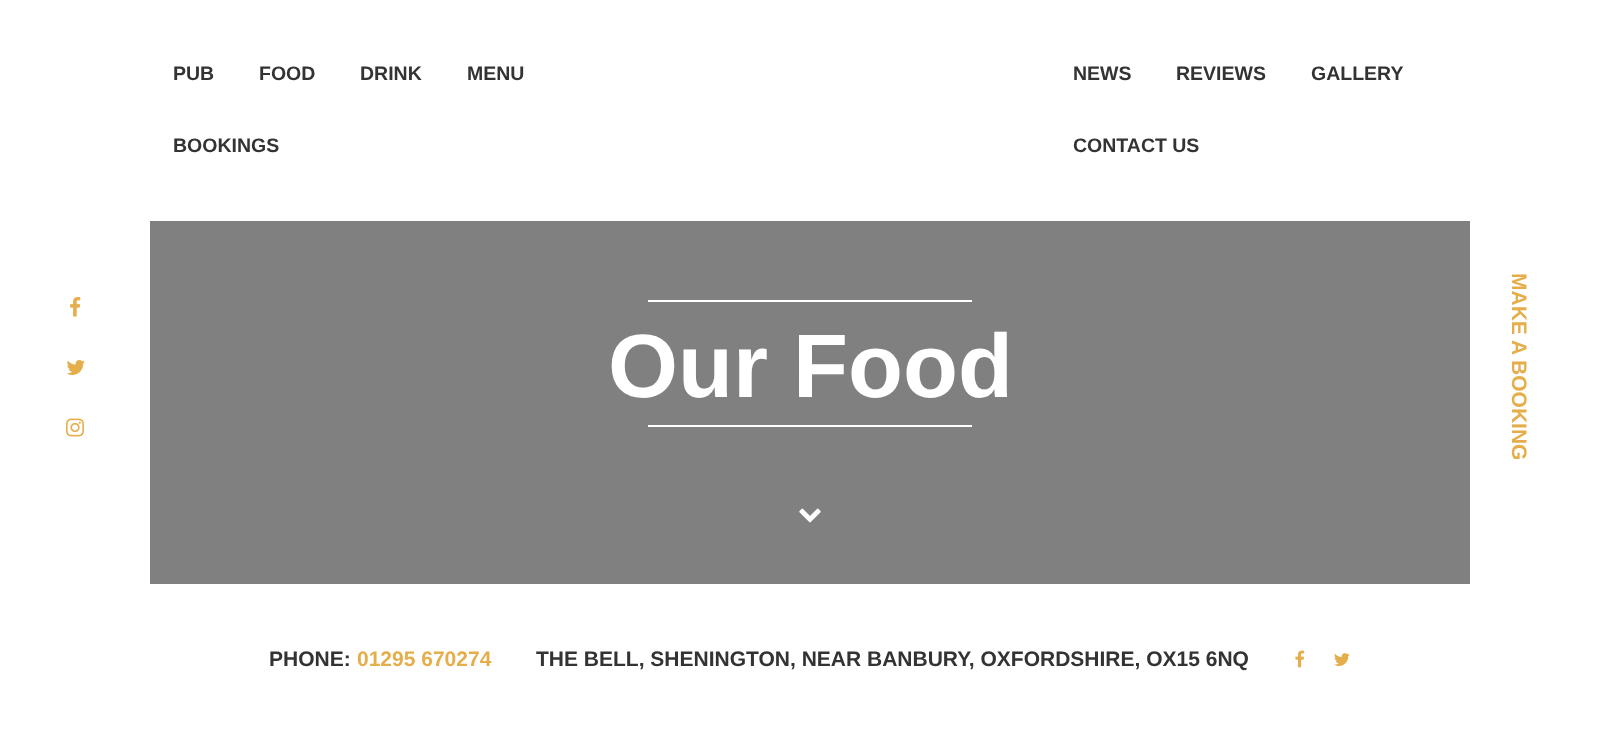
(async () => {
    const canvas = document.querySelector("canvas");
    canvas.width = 1620;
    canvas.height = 733;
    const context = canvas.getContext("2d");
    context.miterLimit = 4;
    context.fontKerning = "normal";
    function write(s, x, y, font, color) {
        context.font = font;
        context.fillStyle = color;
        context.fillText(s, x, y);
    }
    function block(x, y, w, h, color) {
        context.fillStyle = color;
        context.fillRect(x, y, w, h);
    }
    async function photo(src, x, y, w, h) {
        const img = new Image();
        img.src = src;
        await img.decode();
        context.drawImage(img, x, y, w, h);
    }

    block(0, 0, 1620, 733, "rgb(255, 255, 255)");
    await photo("media/1.png", 70, 297, 11, 20);
    await photo("media/2.png", 66, 360, 19, 15);
    await photo("media/3.png", 66, 418, 18, 19);
    write("PUB", 173, 80, "bold 19.5px Liberation Sans", "rgb(51, 51, 51)");
    write("FOOD", 259, 80, "bold 19.5px Liberation Sans", "rgb(51, 51, 51)");
    write("DRINK", 360, 80, "bold 19.5px Liberation Sans", "rgb(51, 51, 51)");
    write("MENU", 467, 80, "bold 19.5px Liberation Sans", "rgb(51, 51, 51)");
    write("BOOKINGS", 173, 152, "bold 19.5px Liberation Sans", "rgb(51, 51, 51)");
    write("NEWS", 1073, 80, "bold 19.5px Liberation Sans", "rgb(51, 51, 51)");
    write("REVIEWS", 1176, 80, "bold 19.5px Liberation Sans", "rgb(51, 51, 51)");
    write("GALLERY", 1311, 80, "bold 19.5px Liberation Sans", "rgb(51, 51, 51)");
    write("CONTACT US", 1073, 152, "bold 19.5px Liberation Sans", "rgb(51, 51, 51)");
    block(150, 221, 1320, 363, "rgb(128, 128, 128)");
    block(648, 300, 324, 2, "rgb(255, 255, 255)");
    write("Our Food", 608, 397, "bold 90px Liberation Sans", "rgb(255, 255, 255)");
    block(648, 425, 324, 2, "rgb(255, 255, 255)");
    await photo("media/4.png", 799, 508, 22, 15);
    write("PHONE:", 269, 666, "bold 21px Liberation Sans", "rgb(51, 51, 51)");
    write("01295 670274", 357, 666, "bold 21px Liberation Sans", "rgb(229, 174, 74)");
    write("THE BELL, SHENINGTON, NEAR BANBURY, OXFORDSHIRE, OX15 6NQ", 536, 666, "bold 21px Liberation Sans", "rgb(51, 51, 51)");
    await photo("media/5.png", 1295, 650, 10, 18);
    await photo("media/6.png", 1334, 653, 16, 13);
    context.fillStyle = "rgb(229, 174, 74)";
    context.save();
    context.translate(1512, 273);
    context.rotate(90 * Math.PI / 180);
    context.fillText("MAKE A BOOKING", 0, 0);
    context.restore();
})();
